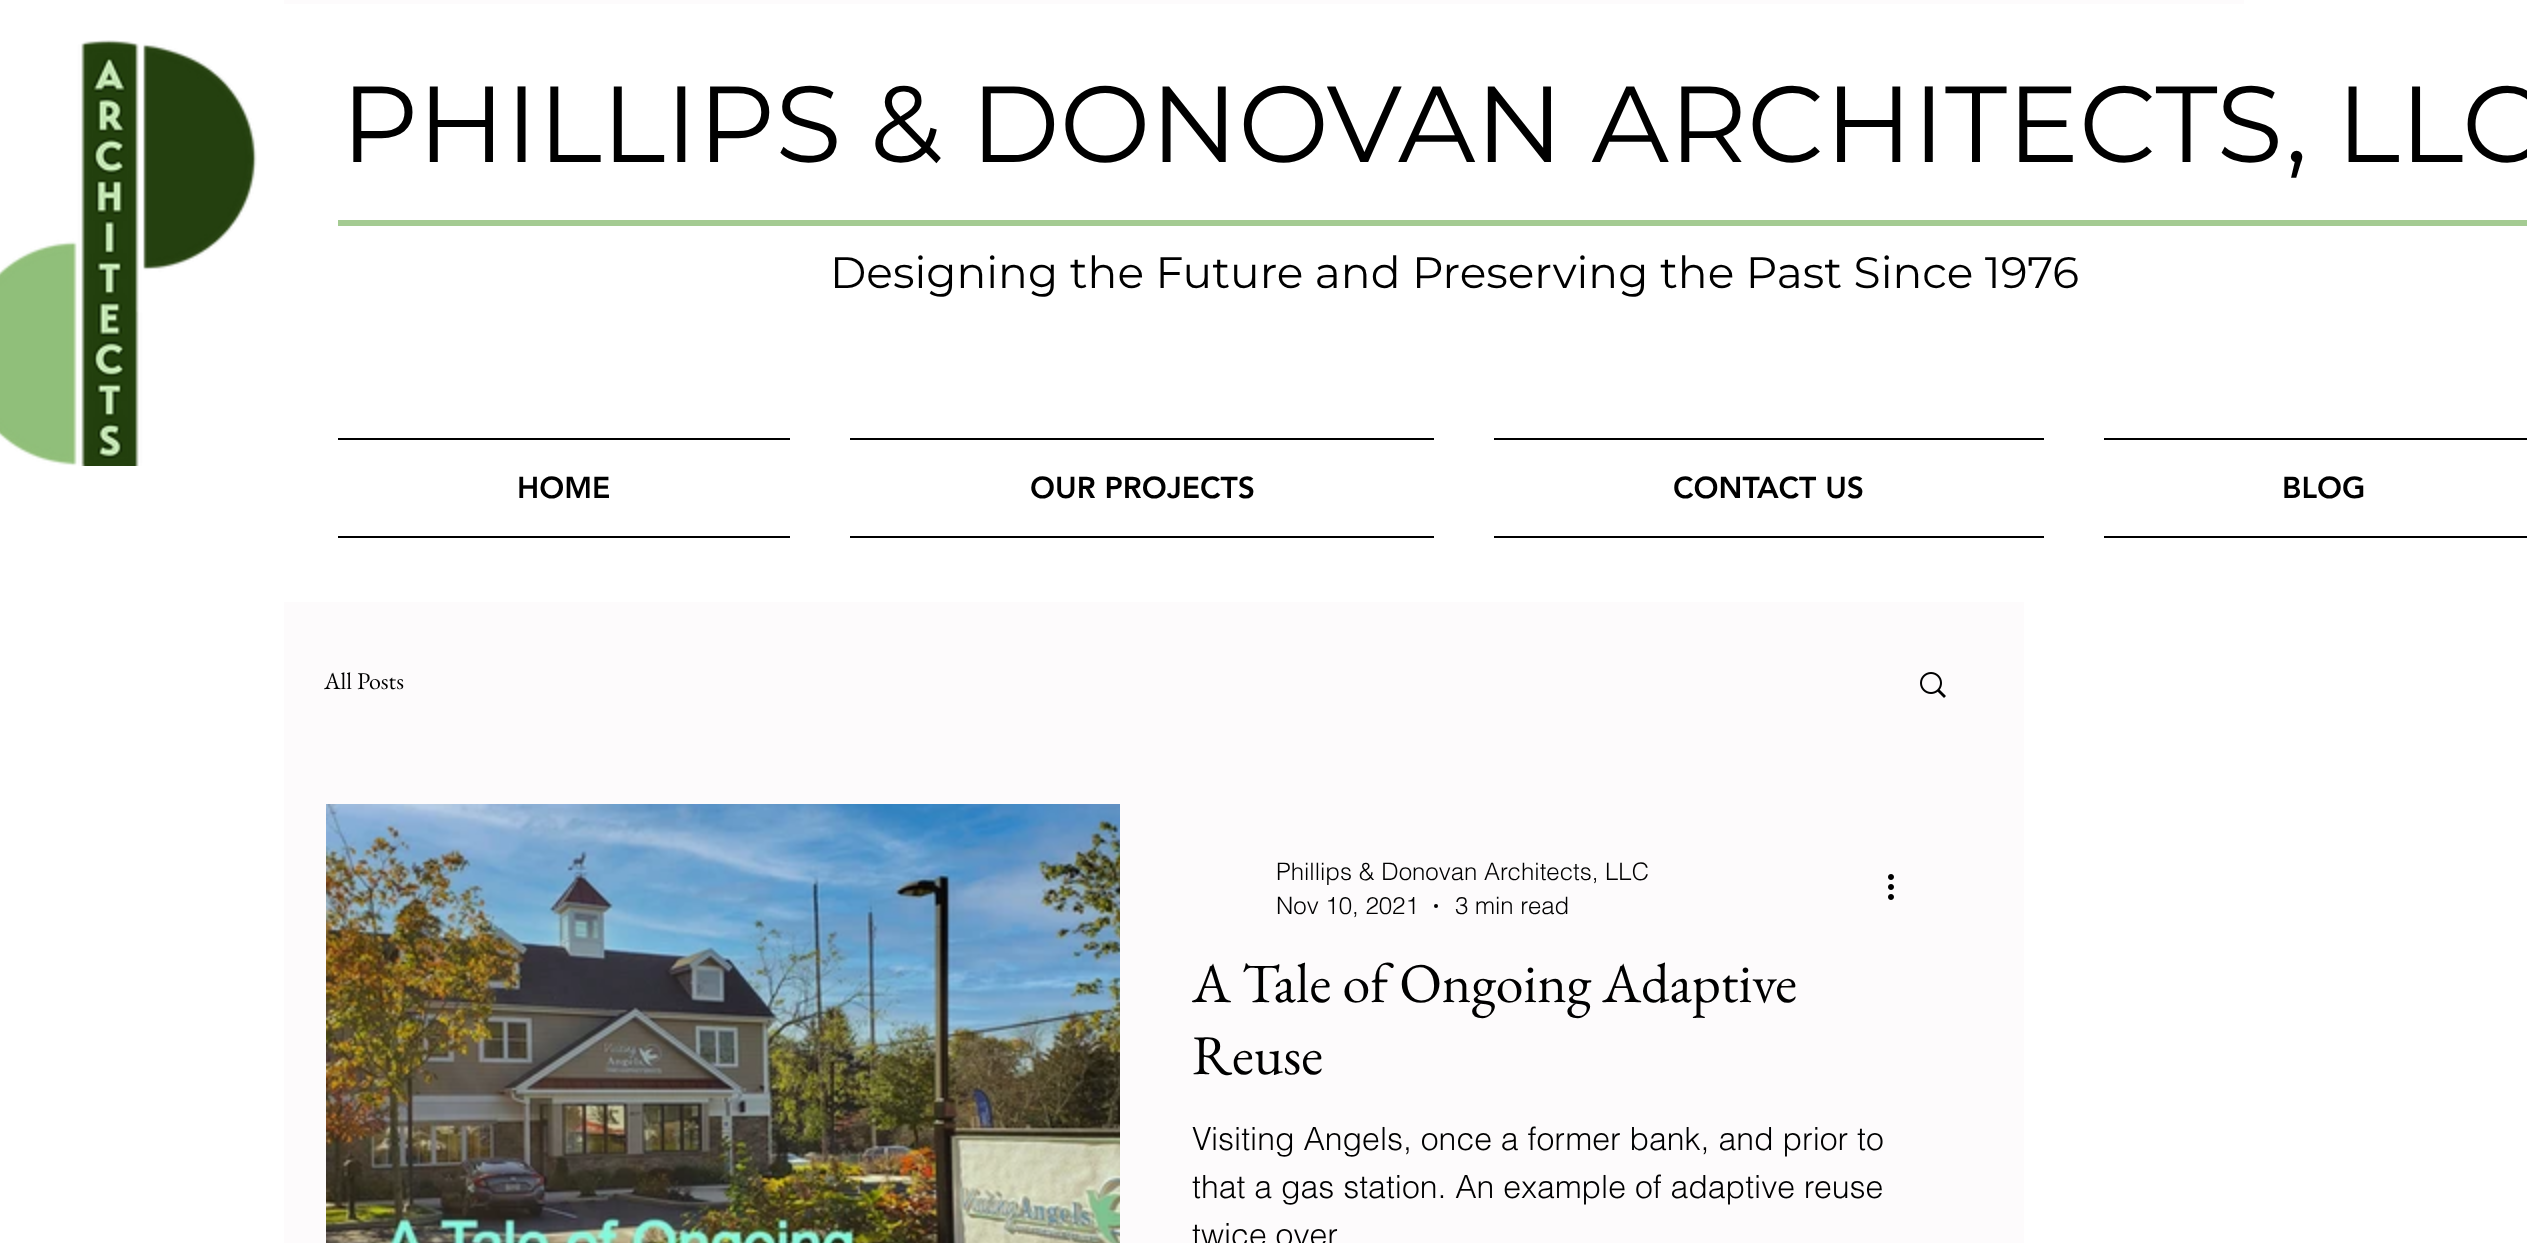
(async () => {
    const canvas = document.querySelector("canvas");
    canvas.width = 2527;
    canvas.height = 1243;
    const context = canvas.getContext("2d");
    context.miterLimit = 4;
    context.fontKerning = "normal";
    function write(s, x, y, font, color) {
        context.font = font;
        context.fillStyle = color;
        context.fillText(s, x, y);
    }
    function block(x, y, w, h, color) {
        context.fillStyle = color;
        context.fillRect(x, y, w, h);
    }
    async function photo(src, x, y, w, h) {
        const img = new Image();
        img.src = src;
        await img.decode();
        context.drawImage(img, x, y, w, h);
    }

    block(0, 0, 2527, 1243, "rgb(255, 255, 255)");
    block(284, 0, 1960, 4, "rgb(253, 251, 252)");
    await photo("media/1.png", 0, 40, 257, 426);
    write("PHILLIPS & DONOVAN ARCHITECTS, LLC", 341, 162, "108px Montserrat", "rgb(0, 0, 0)");
    block(338, 220, 2189, 6, "rgb(164, 203, 146)");
    write("Designing the Future and Preserving the Past Since 1976", 830, 288, "44px Montserrat", "rgb(0, 0, 0)");
    block(338, 438, 452, 2, "rgb(0, 0, 0)");
    block(338, 536, 452, 2, "rgb(0, 0, 0)");
    write("HOME", 517, 498, "900 30px 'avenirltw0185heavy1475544'", "rgb(0, 0, 0)");
    block(850, 438, 584, 2, "rgb(0, 0, 0)");
    block(850, 536, 584, 2, "rgb(0, 0, 0)");
    write("OUR PROJECTS", 1030, 498, "900 30px 'avenirltw0185heavy1475544'", "rgb(0, 0, 0)");
    block(1494, 438, 550, 2, "rgb(0, 0, 0)");
    block(1494, 536, 550, 2, "rgb(0, 0, 0)");
    write("CONTACT US", 1673, 498, "900 30px 'avenirltw0185heavy1475544'", "rgb(0, 0, 0)");
    block(2104, 438, 423, 2, "rgb(0, 0, 0)");
    block(2104, 536, 423, 2, "rgb(0, 0, 0)");
    write("BLOG", 2282, 498, "900 30px 'avenirltw0185heavy1475544'", "rgb(0, 0, 0)");
    block(284, 602, 1740, 641, "rgb(253, 251, 252)");
    write("All Posts", 324, 689, "24px EB Garamond", "rgb(0, 0, 0)");
    await photo("media/2.png", 1920, 672, 26, 26);
    await photo("media/3.png", 326, 804, 794, 439);
    write("Phillips & Donovan Architects, LLC", 1276, 880, "300 24px helvetica", "rgb(0, 0, 0)");
    write("Nov 10, 2021", 1276, 914, "300 24px helvetica", "rgb(0, 0, 0)");
    context.beginPath();
    context.arc(1436, 906, 2, 0, Math.PI * 2);
    context.fill();
    write("3 min read", 1455, 914, "300 24px helvetica", "rgb(0, 0, 0)");
    await photo("media/4.png", 1888, 874, 6, 26);
    write("A Tale of Ongoing Adaptive", 1192, 1002, "56px EB Garamond", "rgb(0, 0, 0)");
    write("Reuse", 1192, 1074, "56px EB Garamond", "rgb(0, 0, 0)");
    write("Visiting Angels, once a former bank, and prior to", 1192, 1150, "300 32px helvetica", "rgb(0, 0, 0)");
    write("that a gas station. An example of adaptive reuse", 1192, 1198, "300 32px helvetica", "rgb(0, 0, 0)");
    write("twice over", 1192, 1246, "300 32px helvetica", "rgb(0, 0, 0)");
})();
